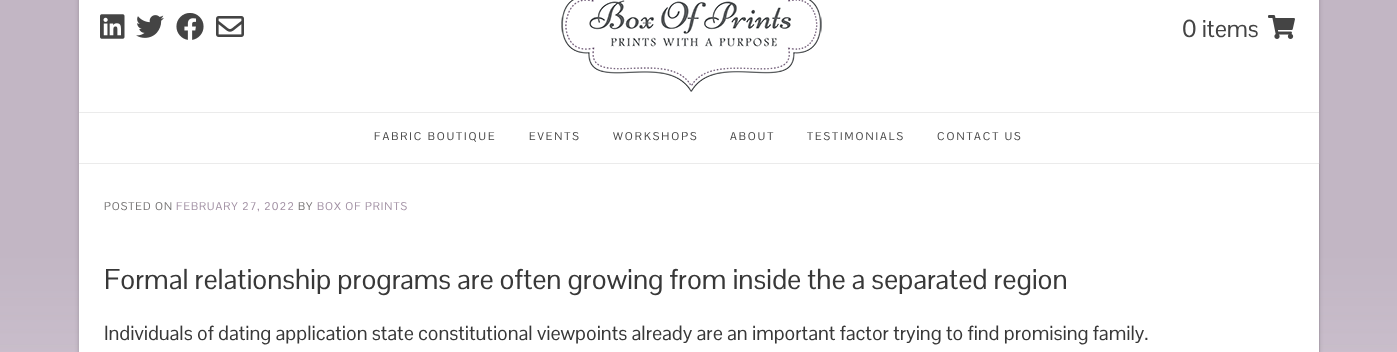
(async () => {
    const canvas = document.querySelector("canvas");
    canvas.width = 1397;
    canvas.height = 352;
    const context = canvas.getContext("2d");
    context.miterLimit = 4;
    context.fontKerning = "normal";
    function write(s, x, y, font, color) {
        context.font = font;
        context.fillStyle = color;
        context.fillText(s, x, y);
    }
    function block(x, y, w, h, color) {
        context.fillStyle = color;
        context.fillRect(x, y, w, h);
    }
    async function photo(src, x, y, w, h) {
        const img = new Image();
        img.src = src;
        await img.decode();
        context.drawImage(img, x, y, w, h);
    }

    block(0, 0, 1397, 352, "rgb(255, 255, 255)");
    await photo("media/1.png", 0, 0, 1397, 352);
    context.fillStyle = "rgba(0, 0, 0, 0.2)";
    context.filter = "blur(2px)";
    context.beginPath();
    context.rect(79, -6, 1240, 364);
    context.fill();
    context.filter = "none";
    block(79, 0, 1240, 352, "rgb(255, 255, 255)");
    await photo("media/2.png", 100, 14, 25, 25);
    await photo("media/3.png", 136, 15, 28, 23);
    await photo("media/4.png", 176, 13, 28, 27);
    await photo("media/5.png", 216, 16, 28, 21);
    await photo("media/6.png", 561, 0, 261, 92);
    write("0 items", 1182, 37, "24px Pontano Sans", "rgb(68, 68, 68)");
    await photo("media/7.png", 1268, 15, 27, 24);
    block(79, 112, 1240, 1, "rgb(235, 235, 235)");
    block(79, 163, 1240, 1, "rgb(235, 235, 235)");
    context.letterSpacing = "2px";
    write("FABRIC BOUTIQUE", 374, 140, "11px Pontano Sans", "rgb(68, 68, 68)");
    write("EVENTS", 529, 140, "11px Pontano Sans", "rgb(68, 68, 68)");
    write("WORKSHOPS", 613, 140, "11px Pontano Sans", "rgb(68, 68, 68)");
    write("ABOUT", 730, 140, "11px Pontano Sans", "rgb(68, 68, 68)");
    write("TESTIMONIALS", 807, 140, "11px Pontano Sans", "rgb(68, 68, 68)");
    write("CONTACT US", 937, 140, "11px Pontano Sans", "rgb(68, 68, 68)");
    block(1319, 164, 1, 188, "rgba(0, 0, 0, 0.06)");
    context.letterSpacing = "1px";
    write("POSTED ON", 104, 210, "11px Pontano Sans", "rgb(115, 113, 113)");
    write("FEBRUARY 27, 2022", 176, 210, "11px Pontano Sans", "rgb(162, 145, 164)");
    write("BY", 298, 210, "11px Pontano Sans", "rgb(115, 113, 113)");
    write("BOX OF PRINTS", 317, 210, "11px Pontano Sans", "rgb(162, 145, 164)");
    context.letterSpacing = "0px";
    write("Formal relationship programs are often growing from inside the a separated region", 104, 289, "28px Pontano Sans", "rgb(56, 56, 56)");
    write("Individuals of dating application state constitutional viewpoints already are an important factor trying to find promising family.", 104, 340, "20px Pontano Sans", "rgb(56, 56, 56)");
})();
